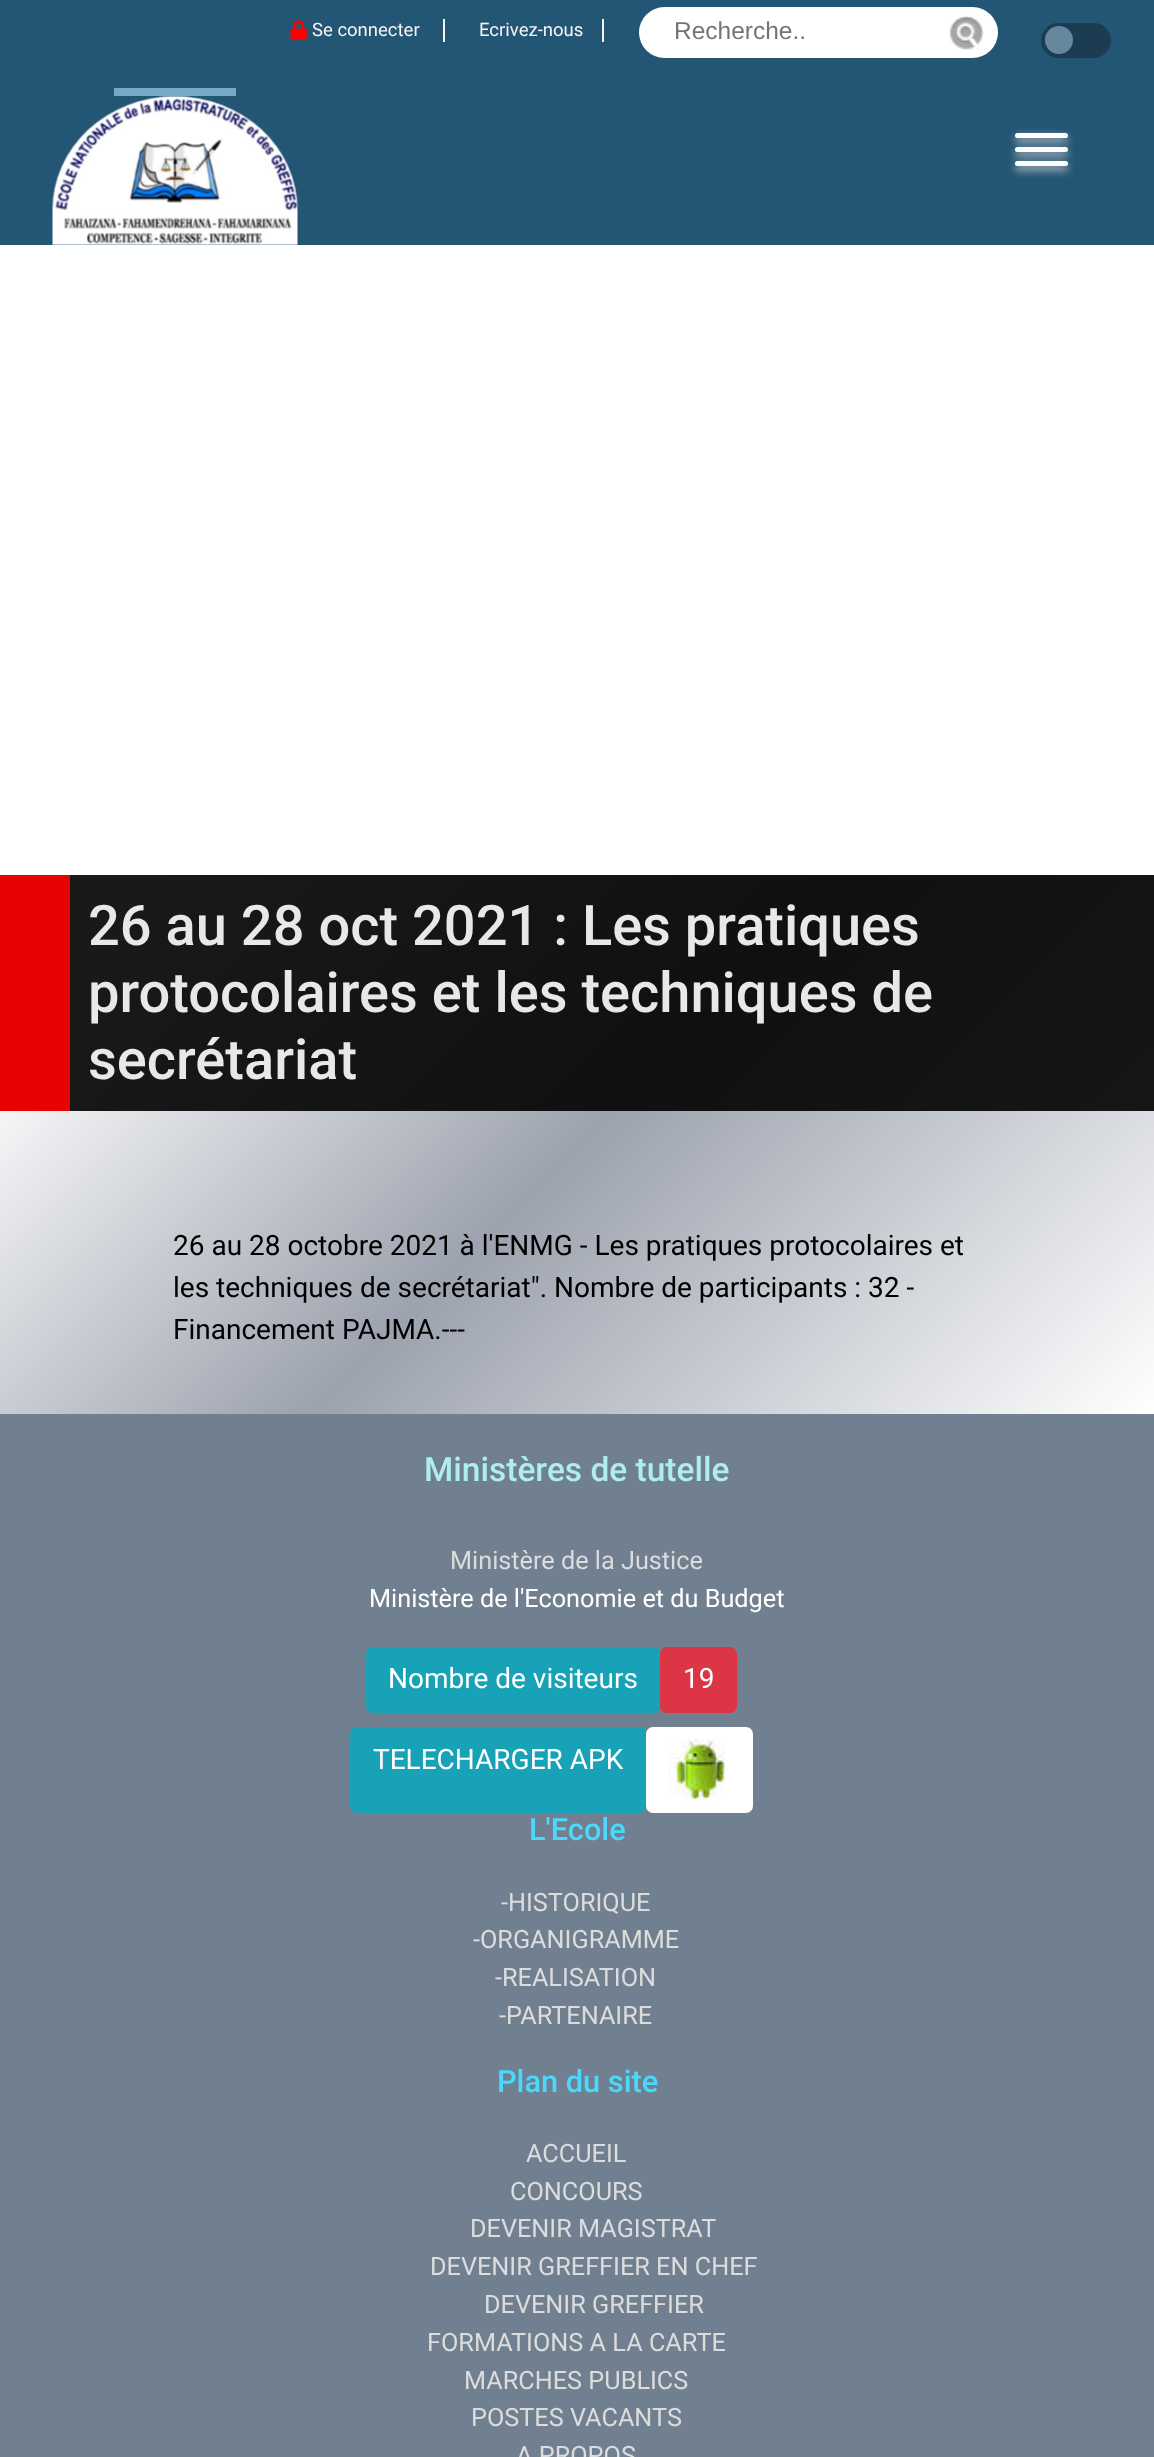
(async () => {
    const canvas = document.querySelector("canvas");
    canvas.width = 1154;
    canvas.height = 2457;
    const context = canvas.getContext("2d");
    context.miterLimit = 4;
    context.fontKerning = "normal";
    function write(s, x, y, font, color) {
        context.font = font;
        context.fillStyle = color;
        context.fillText(s, x, y);
    }
    function block(x, y, w, h, color) {
        context.fillStyle = color;
        context.fillRect(x, y, w, h);
    }
    function card(x, y, w, h, r, color) {
        context.fillStyle = color;
        context.beginPath();
        context.roundRect(x, y, w, h, r);
        context.fill();
    }
    async function photo(src, x, y, w, h) {
        const img = new Image();
        img.src = src;
        await img.decode();
        context.drawImage(img, x, y, w, h);
    }
    let gradient;

    block(0, 0, 1154, 2457, "rgb(255, 255, 255)");
    block(0, 0, 1154, 245, "rgb(35, 85, 116)");
    block(443, 19, 2, 23, "rgb(245, 245, 245)");
    await photo("media/1.png", 290, 20, 17, 20);
    write("Se connecter", 312, 36, "18.5px Roboto", "rgb(245, 245, 245)");
    write("Ecrivez-nous", 479, 36, "18.5px Roboto", "rgb(245, 245, 245)");
    block(602, 19, 2, 23, "rgb(245, 245, 245)");
    card(639, 7, 359, 51, 25.5, "rgb(255, 255, 255)");
    write("Recherche..", 674, 39, "24.5px Liberation Sans", "rgb(117, 117, 117)");
    await photo("media/2.png", 949, 15, 35, 35);
    card(1041, 23, 70, 35, 17.5, "rgb(28, 60, 81)");
    context.fillStyle = "rgb(101, 136, 158)";
    context.beginPath();
    context.arc(1059, 40, 14, 0, Math.PI * 2);
    context.fill();
    block(114, 88, 122, 8, "rgb(120, 167, 200)");
    await photo("media/3.png", 52, 96, 246, 149);
    context.fillStyle = "rgb(211, 211, 211)";
    context.filter = "blur(4.5px)";
    context.beginPath();
    context.roundRect(1015, 151, 53, 5, 2.5);
    context.fill();
    context.filter = "none";
    card(1015, 147, 53, 5, 2.5, "rgb(255, 255, 255)");
    context.fillStyle = "rgb(211, 211, 211)";
    context.filter = "blur(4.5px)";
    context.beginPath();
    context.roundRect(1015, 137, 53, 5, 2.5);
    context.fill();
    context.filter = "none";
    card(1015, 133, 53, 5, 2.5, "rgb(255, 255, 255)");
    context.fillStyle = "rgb(211, 211, 211)";
    context.filter = "blur(4.5px)";
    context.beginPath();
    context.roundRect(1015, 165, 53, 5, 2.5);
    context.fill();
    context.filter = "none";
    card(1015, 161, 53, 5, 2.5, "rgb(255, 255, 255)");
    gradient = context.createLinearGradient(154, 721, 1001, 1568);
    gradient.addColorStop(0.1, "rgb(255, 255, 255)");
    gradient.addColorStop(0.5, "rgb(156, 162, 174)");
    gradient.addColorStop(1, "rgb(255, 255, 255)");
    context.fillStyle = gradient;
    context.fillRect(0, 1111, 1154, 303);
    gradient = context.createLinearGradient(154, 721, 1001, 1568);
    gradient.addColorStop(0.1, "rgb(25, 25, 25)");
    gradient.addColorStop(0.5, "rgb(16, 16, 17)");
    gradient.addColorStop(1, "rgb(25, 25, 25)");
    context.fillStyle = gradient;
    context.fillRect(70, 875, 1084, 236);
    block(0, 875, 70, 236, "rgb(232, 3, 3)");
    write("26 au 28 oct 2021 : Les pratiques", 88, 945, "500 56px Roboto", "rgb(232, 232, 232)");
    write("protocolaires et les techniques de", 88, 1012, "500 56px Roboto", "rgb(232, 232, 232)");
    write("secrétariat", 88, 1079, "500 56px Roboto", "rgb(232, 232, 232)");
    write("26 au 28 octobre 2021 à l'ENMG - Les pratiques protocolaires et", 173, 1255, "28px Roboto", "rgb(0, 0, 0)");
    write("les techniques de secrétariat\". Nombre de participants : 32 -", 173, 1297, "28px Roboto", "rgb(0, 0, 0)");
    write("Financement PAJMA.---", 173, 1339, "28px Roboto", "rgb(0, 0, 0)");
    block(0, 1414, 1154, 1043, "rgb(112, 128, 144)");
    write("Ministères de tutelle", 424, 1481, "500 33.5px Roboto", "rgb(175, 238, 238)");
    write("Ministère de la Justice", 450, 1569, "25.25px Roboto", "rgb(220, 220, 220)");
    write("Ministère de l'Economie et du Budget", 369, 1607, "25.25px Roboto", "rgb(255, 255, 255)");
    context.fillStyle = "rgb(23, 162, 184)";
    context.beginPath();
    context.roundRect(367, 1648, 292, 64, 6);
    context.fill();
    context.strokeStyle = "rgb(23, 162, 184)";
    context.lineWidth = 2;
    context.stroke();
    write("Nombre de visiteurs", 388, 1688, "28px Roboto", "rgb(255, 255, 255)");
    context.fillStyle = "rgb(220, 53, 69)";
    context.beginPath();
    context.roundRect(661, 1648, 75, 64, 6);
    context.fill();
    context.strokeStyle = "rgb(220, 53, 69)";
    context.stroke();
    write("19", 683, 1688, "28px Roboto", "rgb(255, 255, 255)");
    context.fillStyle = "rgb(23, 162, 184)";
    context.beginPath();
    context.roundRect(351, 1728, 294, 84, 6);
    context.fill();
    context.strokeStyle = "rgb(23, 162, 184)";
    context.stroke();
    write("TELECHARGER APK", 373, 1769, "28px Roboto", "rgb(255, 255, 255)");
    card(646, 1727, 107, 86, 7, "rgb(255, 255, 255)");
    await photo("media/4.png", 668, 1739, 57, 62);
    write("L'Ecole", 529, 1840, "500 30.75px Roboto", "rgb(74, 217, 253)");
    write("-HISTORIQUE", 501, 1911, "25.25px Roboto", "rgb(220, 220, 220)");
    write("-ORGANIGRAMME", 473, 1948, "25.25px Roboto", "rgb(220, 220, 220)");
    write("-REALISATION", 495, 1986, "25.25px Roboto", "rgb(220, 220, 220)");
    write("-PARTENAIRE", 499, 2024, "25.25px Roboto", "rgb(220, 220, 220)");
    write("Plan du site", 497, 2092, "500 30.75px Roboto", "rgb(74, 217, 253)");
    write("ACCUEIL", 526, 2162, "25.25px Roboto", "rgb(220, 220, 220)");
    write("CONCOURS", 510, 2200, "25.25px Roboto", "rgb(220, 220, 220)");
    write("DEVENIR MAGISTRAT", 470, 2237, "25.25px Roboto", "rgb(220, 220, 220)");
    write("DEVENIR GREFFIER EN CHEF", 430, 2275, "25.25px Roboto", "rgb(220, 220, 220)");
    write("DEVENIR GREFFIER", 484, 2313, "25.25px Roboto", "rgb(220, 220, 220)");
    write("FORMATIONS A LA CARTE", 427, 2351, "25.25px Roboto", "rgb(220, 220, 220)");
    write("MARCHES PUBLICS", 464, 2389, "25.25px Roboto", "rgb(220, 220, 220)");
    write("POSTES VACANTS", 471, 2426, "25.25px Roboto", "rgb(220, 220, 220)");
    write("A PROPOS", 516, 2464, "25.25px Roboto", "rgb(220, 220, 220)");
})();
